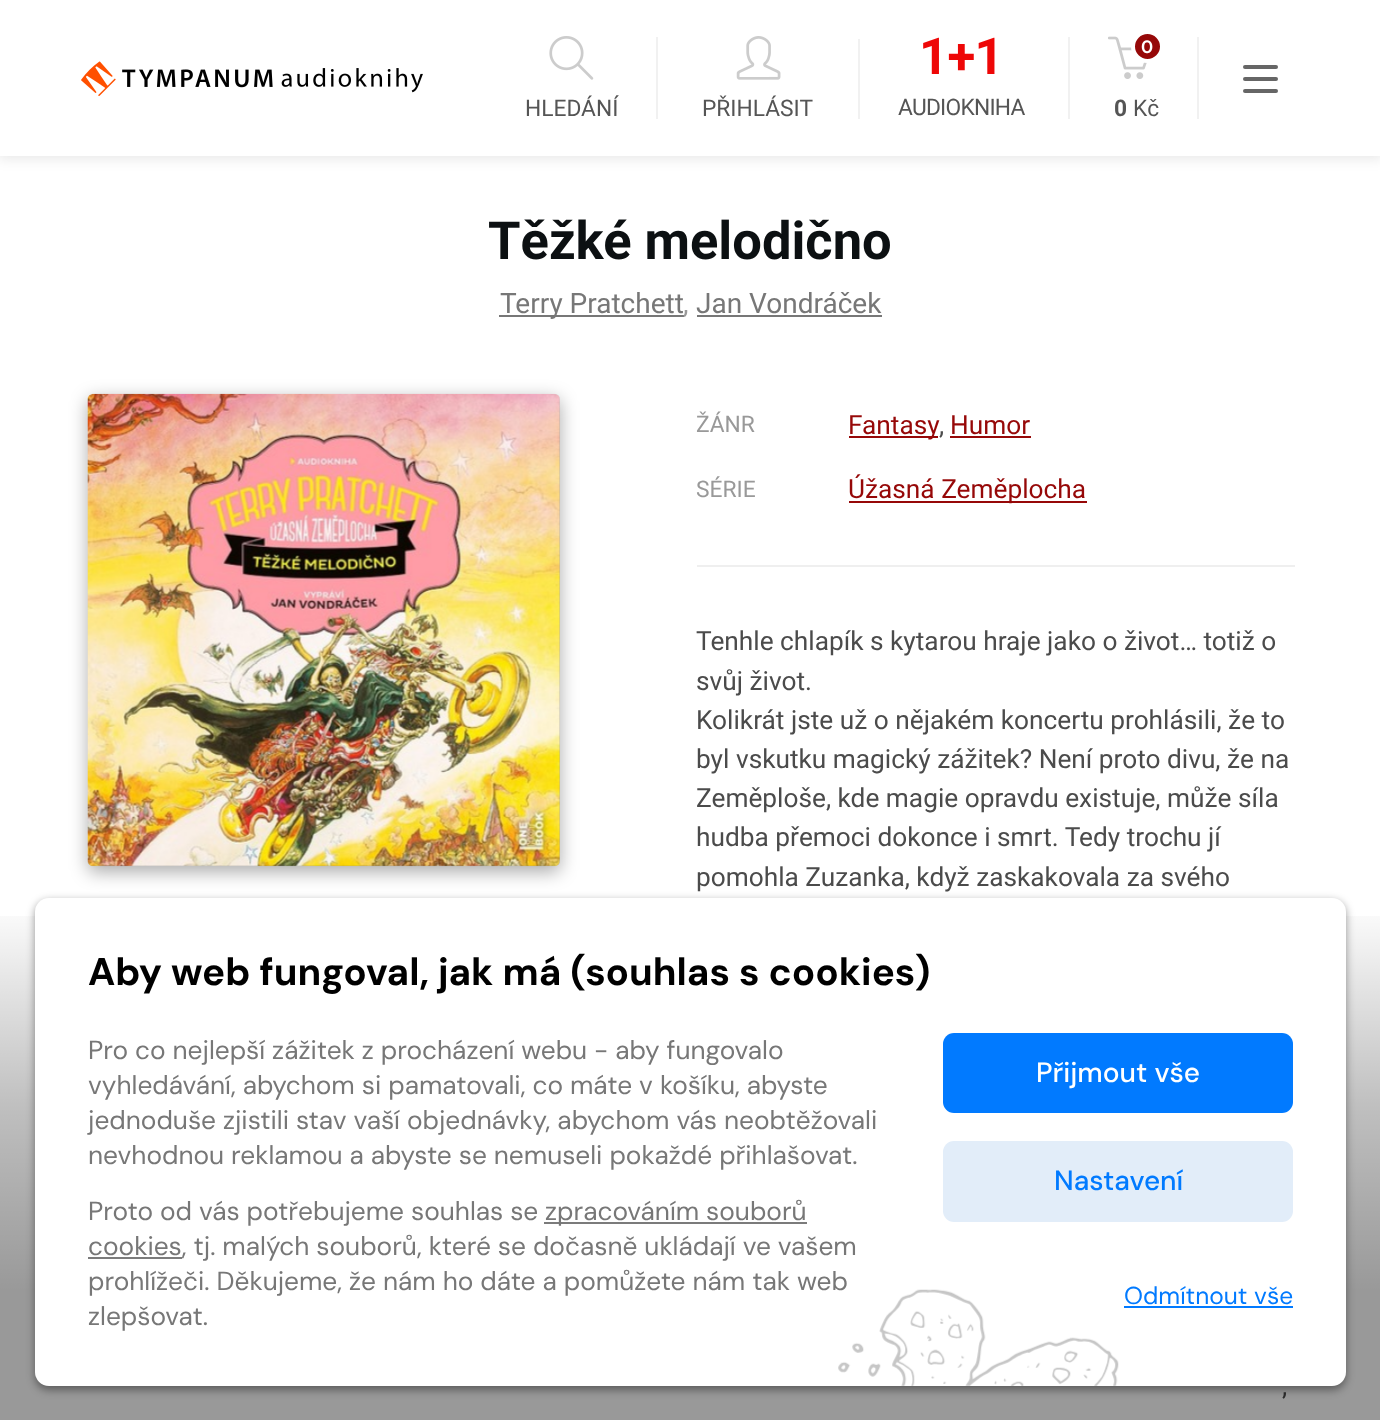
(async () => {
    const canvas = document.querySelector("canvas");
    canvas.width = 1380;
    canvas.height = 1420;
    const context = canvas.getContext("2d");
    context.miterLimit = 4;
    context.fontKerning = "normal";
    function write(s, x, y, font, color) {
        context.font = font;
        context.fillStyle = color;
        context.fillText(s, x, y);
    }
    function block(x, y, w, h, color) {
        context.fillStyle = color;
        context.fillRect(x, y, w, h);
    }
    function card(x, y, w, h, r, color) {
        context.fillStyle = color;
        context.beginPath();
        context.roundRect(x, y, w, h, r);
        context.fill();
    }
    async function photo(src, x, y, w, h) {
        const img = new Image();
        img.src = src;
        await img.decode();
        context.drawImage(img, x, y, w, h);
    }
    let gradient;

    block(0, 0, 1380, 1420, "rgb(255, 255, 255)");
    context.fillStyle = "rgba(0, 0, 0, 0.1)";
    context.filter = "blur(7px)";
    context.beginPath();
    context.rect(-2, -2, 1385, 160);
    context.fill();
    context.filter = "none";
    block(0, 0, 1380, 156, "rgb(255, 255, 255)");
    await photo("media/1.png", 81, 61, 342, 35);
    block(656, 37, 2, 82, "rgb(241, 241, 241)");
    await photo("media/2.png", 549, 36, 45, 44);
    write("HLEDÁNÍ", 525, 116, "22.75px Roboto", "rgb(85, 85, 85)");
    await photo("media/3.png", 736, 36, 45, 44);
    write("PŘIHLÁSIT", 702, 116, "22.75px Roboto", "rgb(85, 85, 85)");
    block(858, 39, 2, 80, "rgb(241, 241, 241)");
    context.letterSpacing = "-0.75px";
    write("1+1", 919, 74, "bold 51px Roboto", "rgb(238, 7, 7)");
    write("AUDIOKNIHA", 898, 115, "22.75px Roboto", "rgb(85, 85, 85)");
    block(1068, 37, 2, 82, "rgb(241, 241, 241)");
    await photo("media/4.png", 1108, 36, 39, 43);
    context.fillStyle = "rgb(150, 8, 8)";
    context.beginPath();
    context.arc(1147.5, 46.5, 14.5, 0, Math.PI * 2);
    context.fill();
    context.strokeStyle = "rgb(255, 255, 255)";
    context.lineWidth = 4;
    context.stroke();
    context.letterSpacing = "0px";
    write("0", 1141, 53, "600 18px Montserrat", "rgb(255, 255, 255)");
    write("0", 1114, 116, "bold 22.75px Roboto", "rgb(85, 85, 85)");
    write("Kč", 1133, 116, "22.75px Roboto", "rgb(85, 85, 85)");
    block(1197, 37, 2, 82, "rgb(241, 241, 241)");
    card(1243, 65, 35, 4, 2, "rgb(102, 102, 102)");
    card(1243, 77, 35, 4, 2, "rgb(102, 102, 102)");
    card(1243, 89, 35, 4, 2, "rgb(102, 102, 102)");
    write("Těžké melodično", 488, 259, "bold 52.5px Roboto", "rgb(12, 16, 18)");
    block(499, 315, 185, 2, "rgb(119, 119, 119)");
    write("Terry Pratchett", 500, 313, "28px Roboto", "rgb(119, 119, 119)");
    write(",", 683, 313, "28px Roboto", "rgb(153, 153, 153)");
    write("Jan Vondráček", 696, 313, "28px Roboto", "rgb(119, 119, 119)");
    block(697, 315, 185, 2, "rgb(119, 119, 119)");
    context.fillStyle = "rgba(0, 0, 0, 0.33)";
    context.filter = "blur(9px)";
    context.beginPath();
    context.roundRect(88, 399, 472, 473, 5);
    context.fill();
    context.filter = "none";
    context.save();
    context.beginPath();
    context.roundRect(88, 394, 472, 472, 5);
    context.clip();
    context.filter = "blur(9px)";
    context.beginPath();
    context.roundRect(88, 399, 472, 473, 5);
    context.fill();
    context.filter = "none";
    context.restore();
    await photo("media/5.png", 87, 393, 473, 474);
    write("ŽÁNR", 696, 432, "22.75px Roboto", "rgb(153, 153, 153)");
    block(849, 436, 89, 2, "rgb(150, 8, 8)");
    write("Fantasy", 848, 434, "26.25px Roboto", "rgb(150, 8, 8)");
    write(",", 939, 434, "26.25px Roboto", "rgb(75, 75, 75)");
    write("Humor", 950, 434, "26.25px Roboto", "rgb(150, 8, 8)");
    block(950, 436, 81, 2, "rgb(150, 8, 8)");
    write("SÉRIE", 696, 497, "22.75px Roboto", "rgb(153, 153, 153)");
    block(849, 501, 238, 2, "rgb(150, 8, 8)");
    write("Úžasná Zeměplocha", 848, 498, "26.25px Roboto", "rgb(150, 8, 8)");
    block(697, 565, 598, 2, "rgb(239, 239, 239)");
    write("Tenhle chlapík s kytarou hraje jako o život… totiž o", 696, 650, "26.25px Roboto", "rgb(75, 75, 75)");
    write("svůj život.", 696, 690, "26.25px Roboto", "rgb(75, 75, 75)");
    write("Kolikrát jste už o nějakém koncertu prohlásili, že to", 696, 729, "26.25px Roboto", "rgb(75, 75, 75)");
    write("byl vskutku magický zážitek? Není proto divu, že na", 696, 768, "26.25px Roboto", "rgb(75, 75, 75)");
    write("Zeměploše, kde magie opravdu existuje, může síla", 696, 807, "26.25px Roboto", "rgb(75, 75, 75)");
    write("hudba přemoci dokonce i smrt. Tedy trochu jí", 696, 846, "26.25px Roboto", "rgb(75, 75, 75)");
    write("pomohla Zuzanka, když zaskakovala za svého", 696, 886, "26.25px Roboto", "rgb(75, 75, 75)");
    write(",", 1282, 1395, "26.25px Roboto", "rgb(75, 75, 75)");
    gradient = context.createLinearGradient(690, 898, 690, 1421);
    gradient.addColorStop(0, "rgba(0, 0, 0, 0)");
    gradient.addColorStop(0.4, "rgba(0, 0, 0, 0.25)");
    gradient.addColorStop(0.75, "rgba(0, 0, 0, 0.4)");
    context.fillStyle = gradient;
    context.fillRect(0, 916, 1380, 504);
    context.fillStyle = "rgba(0, 0, 0, 0.4)";
    context.filter = "blur(4.5px)";
    context.beginPath();
    context.roundRect(35, 901, 1311, 489, 14);
    context.fill();
    context.filter = "none";
    card(35, 898, 1311, 488, 14, "rgb(255, 255, 255)");
    write("Aby web fungoval, jak má (souhlas s cookies)", 88, 985, "bold 38.5px DM Sans", "rgb(0, 0, 0)");
    write("Pro co nejlepší zážitek z procházení webu - aby fungovalo", 88, 1059, "26.25px DM Sans", "rgb(119, 119, 119)");
    write("vyhledávání, abychom si pamatovali, co máte v košíku, abyste", 88, 1094, "26.25px DM Sans", "rgb(119, 119, 119)");
    write("jednoduše zjistili stav vaší objednávky, abychom vás neobtěžovali", 88, 1129, "26.25px DM Sans", "rgb(119, 119, 119)");
    write("nevhodnou reklamou a abyste se nemuseli pokaždé přihlašovat.", 88, 1164, "26.25px DM Sans", "rgb(119, 119, 119)");
    write("Proto od vás potřebujeme souhlas se", 88, 1220, "26.25px DM Sans", "rgb(119, 119, 119)");
    block(544, 1222, 263, 2, "rgb(123, 123, 123)");
    write("zpracováním souborů", 545, 1220, "26.25px DM Sans", "rgb(119, 119, 119)");
    block(88, 1257, 94, 2, "rgb(123, 123, 123)");
    write("cookies, tj. malých souborů, které se dočasně ukládají ve vašem", 88, 1255, "26.25px DM Sans", "rgb(119, 119, 119)");
    await photo("media/6.png", 838, 1289, 281, 97);
    write("prohlížeči. Děkujeme, že nám ho dáte a pomůžete nám tak web", 88, 1290, "26.25px DM Sans", "rgb(119, 119, 119)");
    write("zlepšovat.", 88, 1325, "26.25px DM Sans", "rgb(119, 119, 119)");
    card(943, 1033, 350, 80, 11, "rgb(1, 122, 255)");
    write("Přijmout vše", 1036, 1082, "500 28px DM Sans", "rgb(255, 255, 255)");
    card(943, 1141, 350, 81, 11, "rgb(226, 237, 249)");
    write("Nastavení", 1054, 1190, "500 28px DM Sans", "rgb(1, 122, 255)");
    write("Odmítnout vše", 1124, 1304, "24.5px DM Sans", "rgb(1, 122, 255)");
    block(1124, 1306, 169, 2, "rgb(1, 122, 255)");
})();
